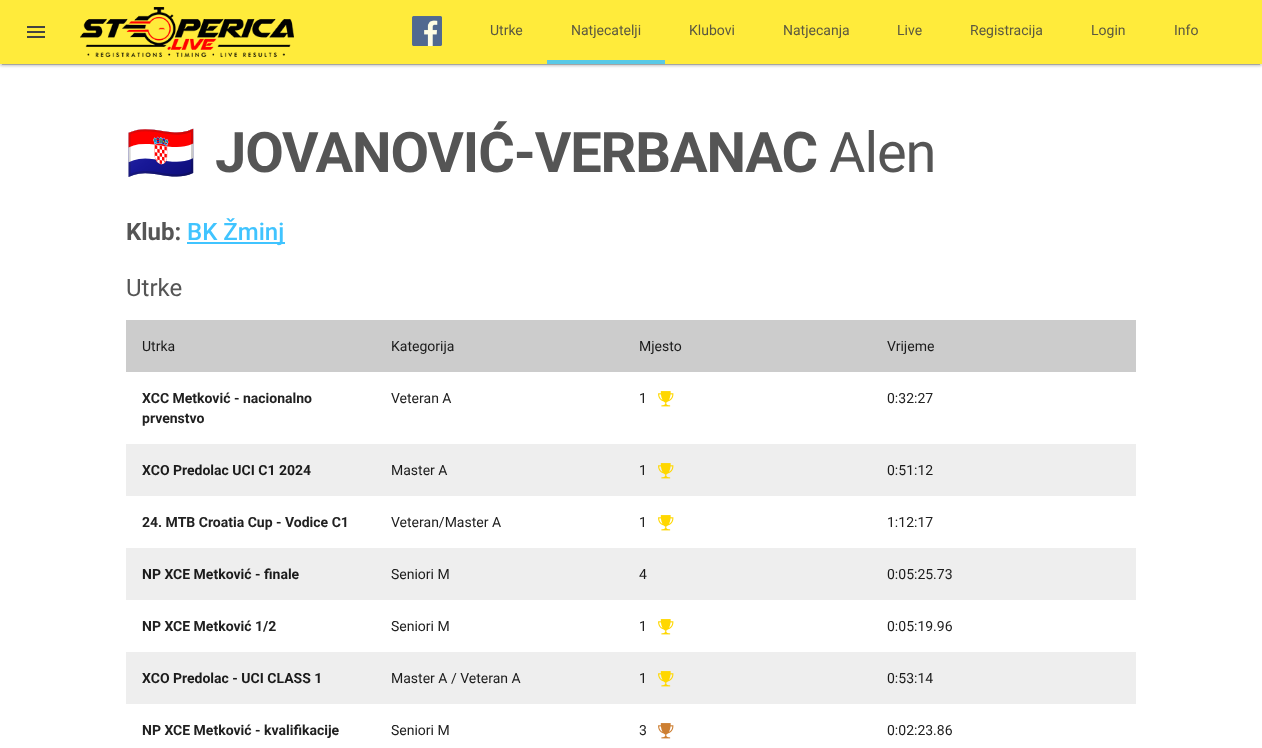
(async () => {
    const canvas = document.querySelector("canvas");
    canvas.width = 1262;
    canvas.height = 748;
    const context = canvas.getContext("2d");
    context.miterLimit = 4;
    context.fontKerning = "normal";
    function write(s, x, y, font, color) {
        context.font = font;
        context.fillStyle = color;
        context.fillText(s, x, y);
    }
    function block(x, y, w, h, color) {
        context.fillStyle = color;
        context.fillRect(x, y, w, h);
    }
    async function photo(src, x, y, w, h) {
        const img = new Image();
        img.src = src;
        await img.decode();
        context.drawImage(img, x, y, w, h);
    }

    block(0, 0, 1262, 748, "rgb(255, 255, 255)");
    context.fillStyle = "rgba(0, 0, 0, 0.12)";
    context.filter = "blur(2.5px)";
    context.beginPath();
    context.rect(0, 1, 1262, 64);
    context.fill();
    context.filter = "none";
    context.fillStyle = "rgba(0, 0, 0, 0.2)";
    context.filter = "blur(0.5px)";
    context.beginPath();
    context.rect(2, 5, 1258, 60);
    context.fill();
    context.filter = "none";
    context.fillStyle = "rgba(0, 0, 0, 0.14)";
    context.filter = "blur(1px)";
    context.beginPath();
    context.rect(0, 2, 1262, 64);
    context.fill();
    context.filter = "none";
    block(0, 0, 1262, 64, "rgb(255, 235, 59)");
    await photo("media/1.png", 27, 26, 18, 12);
    await photo("media/2.png", 80, 7, 214, 50);
    await photo("media/3.png", 412, 16, 30, 30);
    write("Utrke", 490, 35, "14px Roboto", "rgb(91, 88, 65)");
    block(547, 60, 118, 4, "rgb(89, 201, 230)");
    write("Natjecatelji", 571, 35, "14px Roboto", "rgb(91, 88, 65)");
    write("Klubovi", 689, 35, "14px Roboto", "rgb(91, 88, 65)");
    write("Natjecanja", 783, 35, "14px Roboto", "rgb(91, 88, 65)");
    write("Live", 897, 35, "14px Roboto", "rgb(91, 88, 65)");
    write("Registracija", 970, 35, "14px Roboto", "rgb(91, 88, 65)");
    write("Login", 1091, 35, "14px Roboto", "rgb(91, 88, 65)");
    write("Info", 1174, 35, "14px Roboto", "rgb(91, 88, 65)");
    context.letterSpacing = "-1.1px";
    write("🇭🇷", 126, 172, "56px Noto Color Emoji", "rgb(85, 85, 85)");
    write("JOVANOVIĆ-VERBANAC", 215, 172, "bold 56px Roboto", "rgb(85, 85, 85)");
    write("Alen", 829, 172, "56px Roboto", "rgb(85, 85, 85)");
    context.letterSpacing = "0px";
    write("Klub:", 126, 240, "bold 24px Roboto", "rgb(85, 85, 85)");
    block(187, 242, 98, 2, "rgb(64, 196, 255)");
    write("BK Žminj", 187, 240, "500 24px Roboto", "rgb(64, 196, 255)");
    write("Utrke", 126, 296, "24px Roboto", "rgb(85, 85, 85)");
    block(126, 320, 1010, 52, "rgb(204, 204, 204)");
    write("Utrka", 142, 351, "14px Roboto", "rgb(27, 27, 27)");
    write("Kategorija", 391, 351, "14px Roboto", "rgb(27, 27, 27)");
    write("Mjesto", 639, 351, "14px Roboto", "rgb(27, 27, 27)");
    write("Vrijeme", 887, 351, "14px Roboto", "rgb(27, 27, 27)");
    write("XCC Metković - nacionalno", 142, 403, "bold 14px Roboto", "rgb(33, 33, 33)");
    write("prvenstvo", 142, 423, "bold 14px Roboto", "rgb(33, 33, 33)");
    write("Veteran A", 391, 403, "14px Roboto", "rgb(33, 33, 33)");
    write("1", 639, 403, "14px Roboto", "rgb(33, 33, 33)");
    await photo("media/4.png", 658, 391, 16, 16);
    write("0:32:27", 887, 403, "14px Roboto", "rgb(33, 33, 33)");
    block(126, 444, 1010, 52, "rgb(238, 238, 238)");
    write("XCO Predolac UCI C1 2024", 142, 475, "bold 14px Roboto", "rgb(27, 27, 27)");
    write("Master A", 391, 475, "14px Roboto", "rgb(27, 27, 27)");
    write("1", 639, 475, "14px Roboto", "rgb(27, 27, 27)");
    await photo("media/5.png", 658, 463, 16, 16);
    write("0:51:12", 887, 475, "14px Roboto", "rgb(27, 27, 27)");
    write("24. MTB Croatia Cup - Vodice C1", 142, 527, "bold 14px Roboto", "rgb(33, 33, 33)");
    write("Veteran/Master A", 391, 527, "14px Roboto", "rgb(33, 33, 33)");
    write("1", 639, 527, "14px Roboto", "rgb(33, 33, 33)");
    await photo("media/4.png", 658, 515, 16, 16);
    write("1:12:17", 887, 527, "14px Roboto", "rgb(33, 33, 33)");
    block(126, 548, 1010, 52, "rgb(238, 238, 238)");
    write("NP XCE Metković - finale", 142, 579, "bold 14px Roboto", "rgb(27, 27, 27)");
    write("Seniori M", 391, 579, "14px Roboto", "rgb(27, 27, 27)");
    write("4", 639, 579, "14px Roboto", "rgb(27, 27, 27)");
    write("0:05:25.73", 887, 579, "14px Roboto", "rgb(27, 27, 27)");
    write("NP XCE Metković 1/2", 142, 631, "bold 14px Roboto", "rgb(33, 33, 33)");
    write("Seniori M", 391, 631, "14px Roboto", "rgb(33, 33, 33)");
    write("1", 639, 631, "14px Roboto", "rgb(33, 33, 33)");
    await photo("media/4.png", 658, 619, 16, 16);
    write("0:05:19.96", 887, 631, "14px Roboto", "rgb(33, 33, 33)");
    block(126, 652, 1010, 52, "rgb(238, 238, 238)");
    write("XCO Predolac - UCI CLASS 1", 142, 683, "bold 14px Roboto", "rgb(27, 27, 27)");
    write("Master A / Veteran A", 391, 683, "14px Roboto", "rgb(27, 27, 27)");
    write("1", 639, 683, "14px Roboto", "rgb(27, 27, 27)");
    await photo("media/5.png", 658, 671, 16, 16);
    write("0:53:14", 887, 683, "14px Roboto", "rgb(27, 27, 27)");
    write("NP XCE Metković - kvalifikacije", 142, 735, "bold 14px Roboto", "rgb(33, 33, 33)");
    write("Seniori M", 391, 735, "14px Roboto", "rgb(33, 33, 33)");
    write("3", 639, 735, "14px Roboto", "rgb(33, 33, 33)");
    await photo("media/6.png", 658, 723, 16, 16);
    write("0:02:23.86", 887, 735, "14px Roboto", "rgb(33, 33, 33)");
})();
